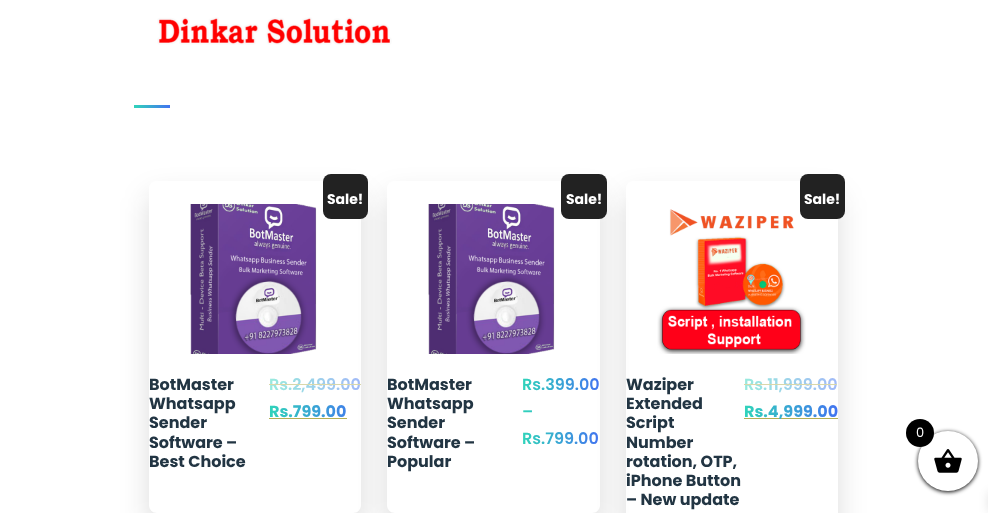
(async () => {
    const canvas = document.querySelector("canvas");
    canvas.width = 988;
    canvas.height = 513;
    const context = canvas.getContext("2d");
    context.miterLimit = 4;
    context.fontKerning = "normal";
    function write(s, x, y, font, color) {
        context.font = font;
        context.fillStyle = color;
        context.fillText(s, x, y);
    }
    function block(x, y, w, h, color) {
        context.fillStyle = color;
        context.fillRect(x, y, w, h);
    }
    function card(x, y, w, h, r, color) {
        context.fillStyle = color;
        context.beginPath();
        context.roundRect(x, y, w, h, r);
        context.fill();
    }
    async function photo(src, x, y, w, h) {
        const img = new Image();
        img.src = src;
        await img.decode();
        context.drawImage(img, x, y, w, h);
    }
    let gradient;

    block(0, 0, 988, 513, "rgb(255, 255, 255)");
    await photo("media/1.png", 157, 17, 235, 28);
    gradient = context.createLinearGradient(134, 105, 170, 105);
    gradient.addColorStop(0, "rgb(48, 212, 186)");
    gradient.addColorStop(1, "rgb(66, 115, 240)");
    context.fillStyle = gradient;
    context.fillRect(134, 105, 36, 3);
    context.save();
    context.beginPath();
    context.moveTo(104, 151);
    context.lineTo(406, 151);
    context.lineTo(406, 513);
    context.lineTo(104, 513);
    context.closePath();
    context.moveTo(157, 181);
    context.lineTo(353, 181);
    context.bezierCurveTo(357.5, 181, 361, 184.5, 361, 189);
    context.lineTo(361, 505);
    context.bezierCurveTo(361, 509.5, 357.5, 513, 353, 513);
    context.lineTo(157, 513);
    context.bezierCurveTo(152.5, 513, 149, 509.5, 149, 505);
    context.lineTo(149, 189);
    context.bezierCurveTo(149, 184.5, 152.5, 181, 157, 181);
    context.closePath();
    context.clip("evenodd");
    context.fillStyle = "rgba(18, 18, 18, 0.15)";
    context.filter = "blur(14.5px)";
    context.beginPath();
    context.roundRect(149, 196, 212, 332, 8);
    context.fill();
    context.filter = "none";
    context.restore();
    context.font = "600 16px Poppins";
    gradient = context.createLinearGradient(269, 371, 361, 371);
    gradient.addColorStop(0, "rgb(152, 234, 221)");
    gradient.addColorStop(1, "rgb(161, 185, 248)");
    context.fillStyle = gradient;
    context.fillText("Rs.2,499.00", 269, 390);
    block(269, 384, 92, 1, "rgb(217, 215, 170)");
    block(269, 418, 78, 1, "rgb(179, 175, 84)");
    context.save();
    context.beginPath();
    context.moveTo(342, 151);
    context.lineTo(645, 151);
    context.lineTo(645, 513);
    context.lineTo(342, 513);
    context.closePath();
    context.moveTo(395, 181);
    context.lineTo(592, 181);
    context.bezierCurveTo(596.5, 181, 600, 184.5, 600, 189);
    context.lineTo(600, 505);
    context.bezierCurveTo(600, 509.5, 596.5, 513, 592, 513);
    context.lineTo(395, 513);
    context.bezierCurveTo(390.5, 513, 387, 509.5, 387, 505);
    context.lineTo(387, 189);
    context.bezierCurveTo(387, 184.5, 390.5, 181, 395, 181);
    context.closePath();
    context.clip("evenodd");
    context.fillStyle = "rgba(18, 18, 18, 0.15)";
    context.filter = "blur(14.5px)";
    context.beginPath();
    context.roundRect(387, 196, 213, 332, 8);
    context.fill();
    context.filter = "none";
    context.restore();
    card(323, 174, 45, 45, 8, "rgb(34, 34, 34)");
    write("Sale!", 327, 204, "bold 14px Poppins", "rgb(255, 255, 255)");
    await photo("media/2.png", 190, 204, 127, 150);
    write("BotMaster", 149, 390, "bold 16px Poppins", "rgb(34, 53, 67)");
    write("Whatsapp", 149, 409, "bold 16px Poppins", "rgb(34, 53, 67)");
    write("Sender", 149, 428, "bold 16px Poppins", "rgb(34, 53, 67)");
    write("Software –", 149, 448, "bold 16px Poppins", "rgb(34, 53, 67)");
    write("Best Choice", 149, 467, "bold 16px Poppins", "rgb(34, 53, 67)");
    gradient = context.createLinearGradient(269, 371, 361, 371);
    gradient.addColorStop(0, "rgb(48, 212, 186)");
    gradient.addColorStop(1, "rgb(66, 115, 240)");
    context.fillStyle = gradient;
    context.fillText("Rs.799.00", 269, 417);
    context.save();
    context.beginPath();
    context.moveTo(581, 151);
    context.lineTo(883, 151);
    context.lineTo(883, 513);
    context.lineTo(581, 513);
    context.closePath();
    context.moveTo(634, 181);
    context.lineTo(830, 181);
    context.bezierCurveTo(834.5, 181, 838, 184.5, 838, 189);
    context.lineTo(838, 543);
    context.bezierCurveTo(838, 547.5, 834.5, 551, 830, 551);
    context.lineTo(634, 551);
    context.bezierCurveTo(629.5, 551, 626, 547.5, 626, 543);
    context.lineTo(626, 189);
    context.bezierCurveTo(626, 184.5, 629.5, 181, 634, 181);
    context.closePath();
    context.clip("evenodd");
    context.fillStyle = "rgba(18, 18, 18, 0.15)";
    context.filter = "blur(14.5px)";
    context.beginPath();
    context.roundRect(626, 196, 212, 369, 8);
    context.fill();
    context.filter = "none";
    context.restore();
    card(561, 174, 46, 45, 8, "rgb(34, 34, 34)");
    write("Sale!", 566, 204, "bold 14px Poppins", "rgb(255, 255, 255)");
    await photo("media/2.png", 428, 204, 127, 150);
    write("BotMaster", 387, 390, "bold 16px Poppins", "rgb(34, 53, 67)");
    write("Whatsapp", 387, 409, "bold 16px Poppins", "rgb(34, 53, 67)");
    write("Sender", 387, 428, "bold 16px Poppins", "rgb(34, 53, 67)");
    write("Software –", 387, 448, "bold 16px Poppins", "rgb(34, 53, 67)");
    write("Popular", 387, 467, "bold 16px Poppins", "rgb(34, 53, 67)");
    context.font = "600 16px Poppins";
    gradient = context.createLinearGradient(522, 371, 600, 371);
    gradient.addColorStop(0, "rgb(48, 212, 186)");
    gradient.addColorStop(1, "rgb(66, 115, 240)");
    context.fillStyle = gradient;
    context.fillText("Rs.399.00", 522, 390);
    context.fillText("–", 522, 417);
    context.fillText("Rs.799.00", 522, 444);
    await photo("media/3.png", 657, 209, 149, 145);
    card(800, 174, 45, 45, 8, "rgb(34, 34, 34)");
    write("Sale!", 804, 204, "bold 14px Poppins", "rgb(255, 255, 255)");
    write("Waziper", 626, 390, "bold 16px Poppins", "rgb(34, 53, 67)");
    write("Extended", 626, 409, "bold 16px Poppins", "rgb(34, 53, 67)");
    write("Script", 626, 428, "bold 16px Poppins", "rgb(34, 53, 67)");
    write("Number", 626, 448, "bold 16px Poppins", "rgb(34, 53, 67)");
    write("rotation, OTP,", 626, 467, "bold 16px Poppins", "rgb(34, 53, 67)");
    write("iPhone Button", 626, 486, "bold 16px Poppins", "rgb(34, 53, 67)");
    write("– New update", 626, 505, "bold 16px Poppins", "rgb(34, 53, 67)");
    context.font = "600 16px Poppins";
    gradient = context.createLinearGradient(744, 371, 838, 371);
    gradient.addColorStop(0, "rgb(152, 234, 221)");
    gradient.addColorStop(1, "rgb(161, 185, 248)");
    context.fillStyle = gradient;
    context.fillText("Rs.11,999.00", 744, 390);
    block(744, 384, 93, 1, "rgb(217, 215, 170)");
    block(744, 418, 94, 1, "rgb(179, 175, 84)");
    context.font = "bold 16px Poppins";
    gradient = context.createLinearGradient(744, 371, 838, 371);
    gradient.addColorStop(0, "rgb(48, 212, 186)");
    gradient.addColorStop(1, "rgb(66, 115, 240)");
    context.fillStyle = gradient;
    context.fillText("Rs.4,999.00", 744, 417);
    context.fillStyle = "rgb(0, 0, 0)";
    context.filter = "blur(2px)";
    context.beginPath();
    context.roundRect(918, 432, 60, 60, 30);
    context.fill();
    context.filter = "none";
    context.fillStyle = "rgba(0, 0, 0, 0.1)";
    context.filter = "blur(5px)";
    context.beginPath();
    context.rect(988, 492, 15, 20);
    context.fill();
    context.filter = "none";
    context.fillStyle = "rgb(255, 255, 255)";
    context.beginPath();
    context.arc(948, 461, 30, 0, Math.PI * 2);
    context.fill();
    context.fillStyle = "rgb(0, 0, 0)";
    context.beginPath();
    context.arc(920, 433, 14, 0, Math.PI * 2);
    context.fill();
    write("0", 916, 437, "13px Poppins", "rgb(255, 255, 255)");
    await photo("media/4.png", 934, 449, 28, 24);
})();
